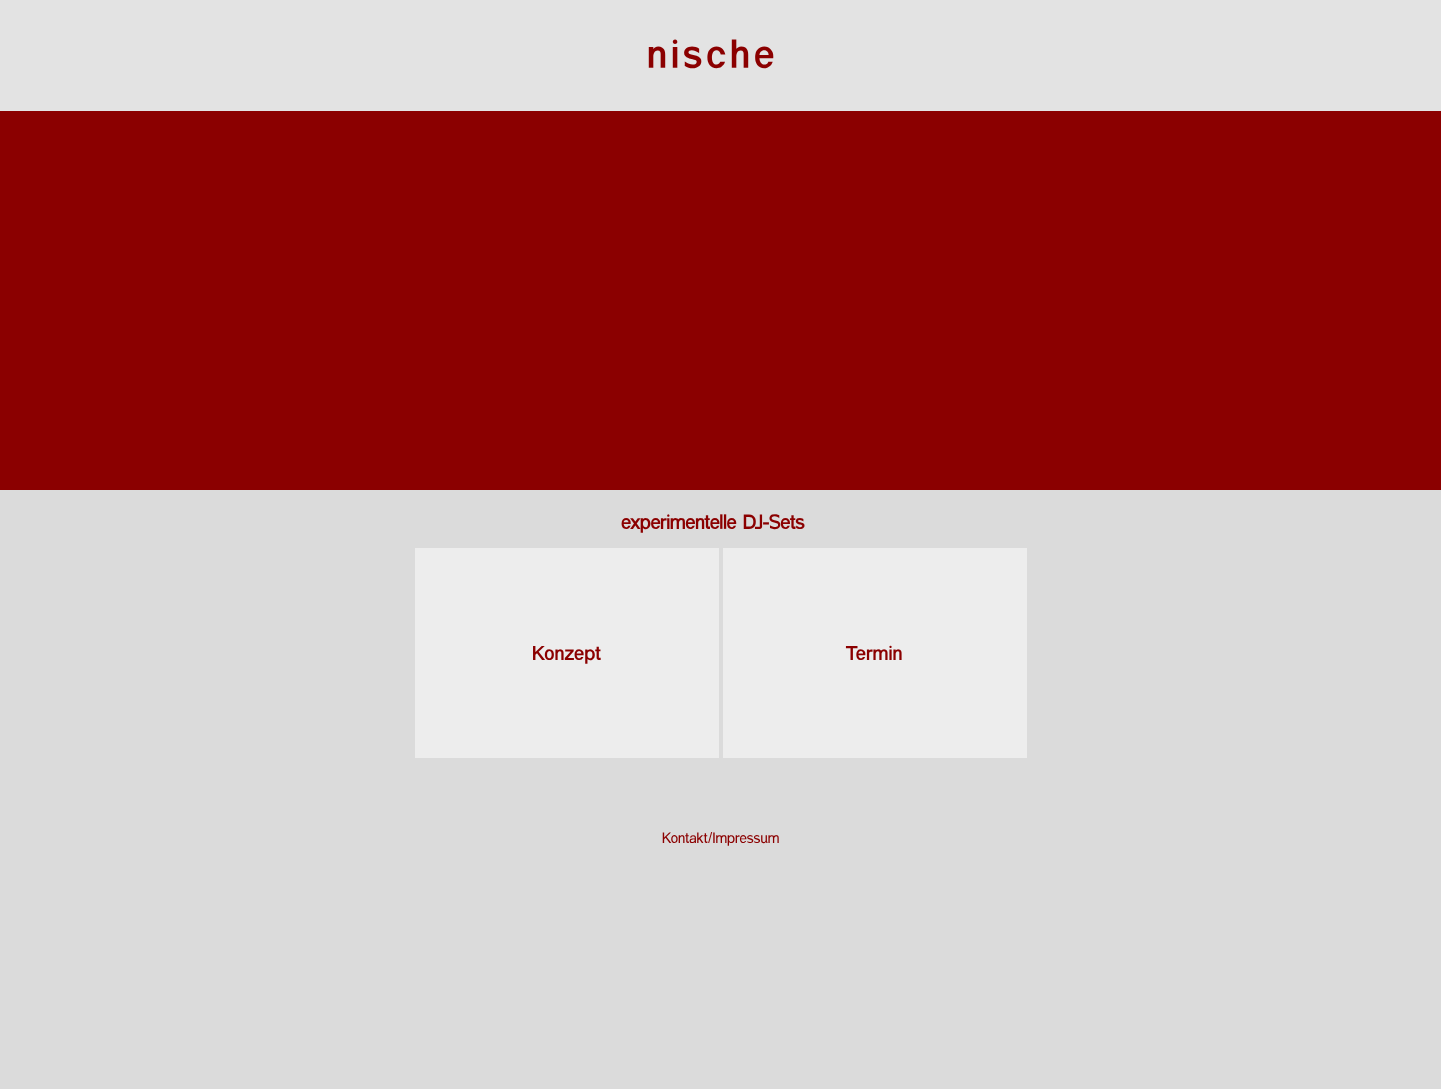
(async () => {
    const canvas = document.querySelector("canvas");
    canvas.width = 1441;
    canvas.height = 1089;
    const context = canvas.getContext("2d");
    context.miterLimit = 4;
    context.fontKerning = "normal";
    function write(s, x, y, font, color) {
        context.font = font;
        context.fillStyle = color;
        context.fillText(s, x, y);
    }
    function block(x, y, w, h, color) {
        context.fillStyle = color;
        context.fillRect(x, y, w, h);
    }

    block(0, 0, 1441, 1089, "rgb(219, 219, 219)");
    block(0, 0, 1441, 111, "rgb(227, 227, 227)");
    context.letterSpacing = "4px";
    write("nische", 647, 68, "bold 40px 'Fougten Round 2'", "rgb(139, 0, 0)");
    block(0, 111, 1441, 379, "rgb(139, 0, 0)");
    context.letterSpacing = "0px";
    write("experimentelle DJ-Sets", 621, 529, "bold 20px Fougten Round", "rgb(139, 0, 0)");
    block(415, 548, 304, 210, "rgb(237, 237, 237)");
    write("Konzept", 532, 660, "bold 20px 'Fougten Round 2'", "rgb(139, 0, 0)");
    block(723, 548, 304, 210, "rgb(237, 237, 237)");
    write("Termin", 846, 660, "bold 20px 'Fougten Round 2'", "rgb(139, 0, 0)");
    write("Kontakt/Impressum", 662, 843, "15px Fougten Round", "rgb(139, 0, 0)");
})();
